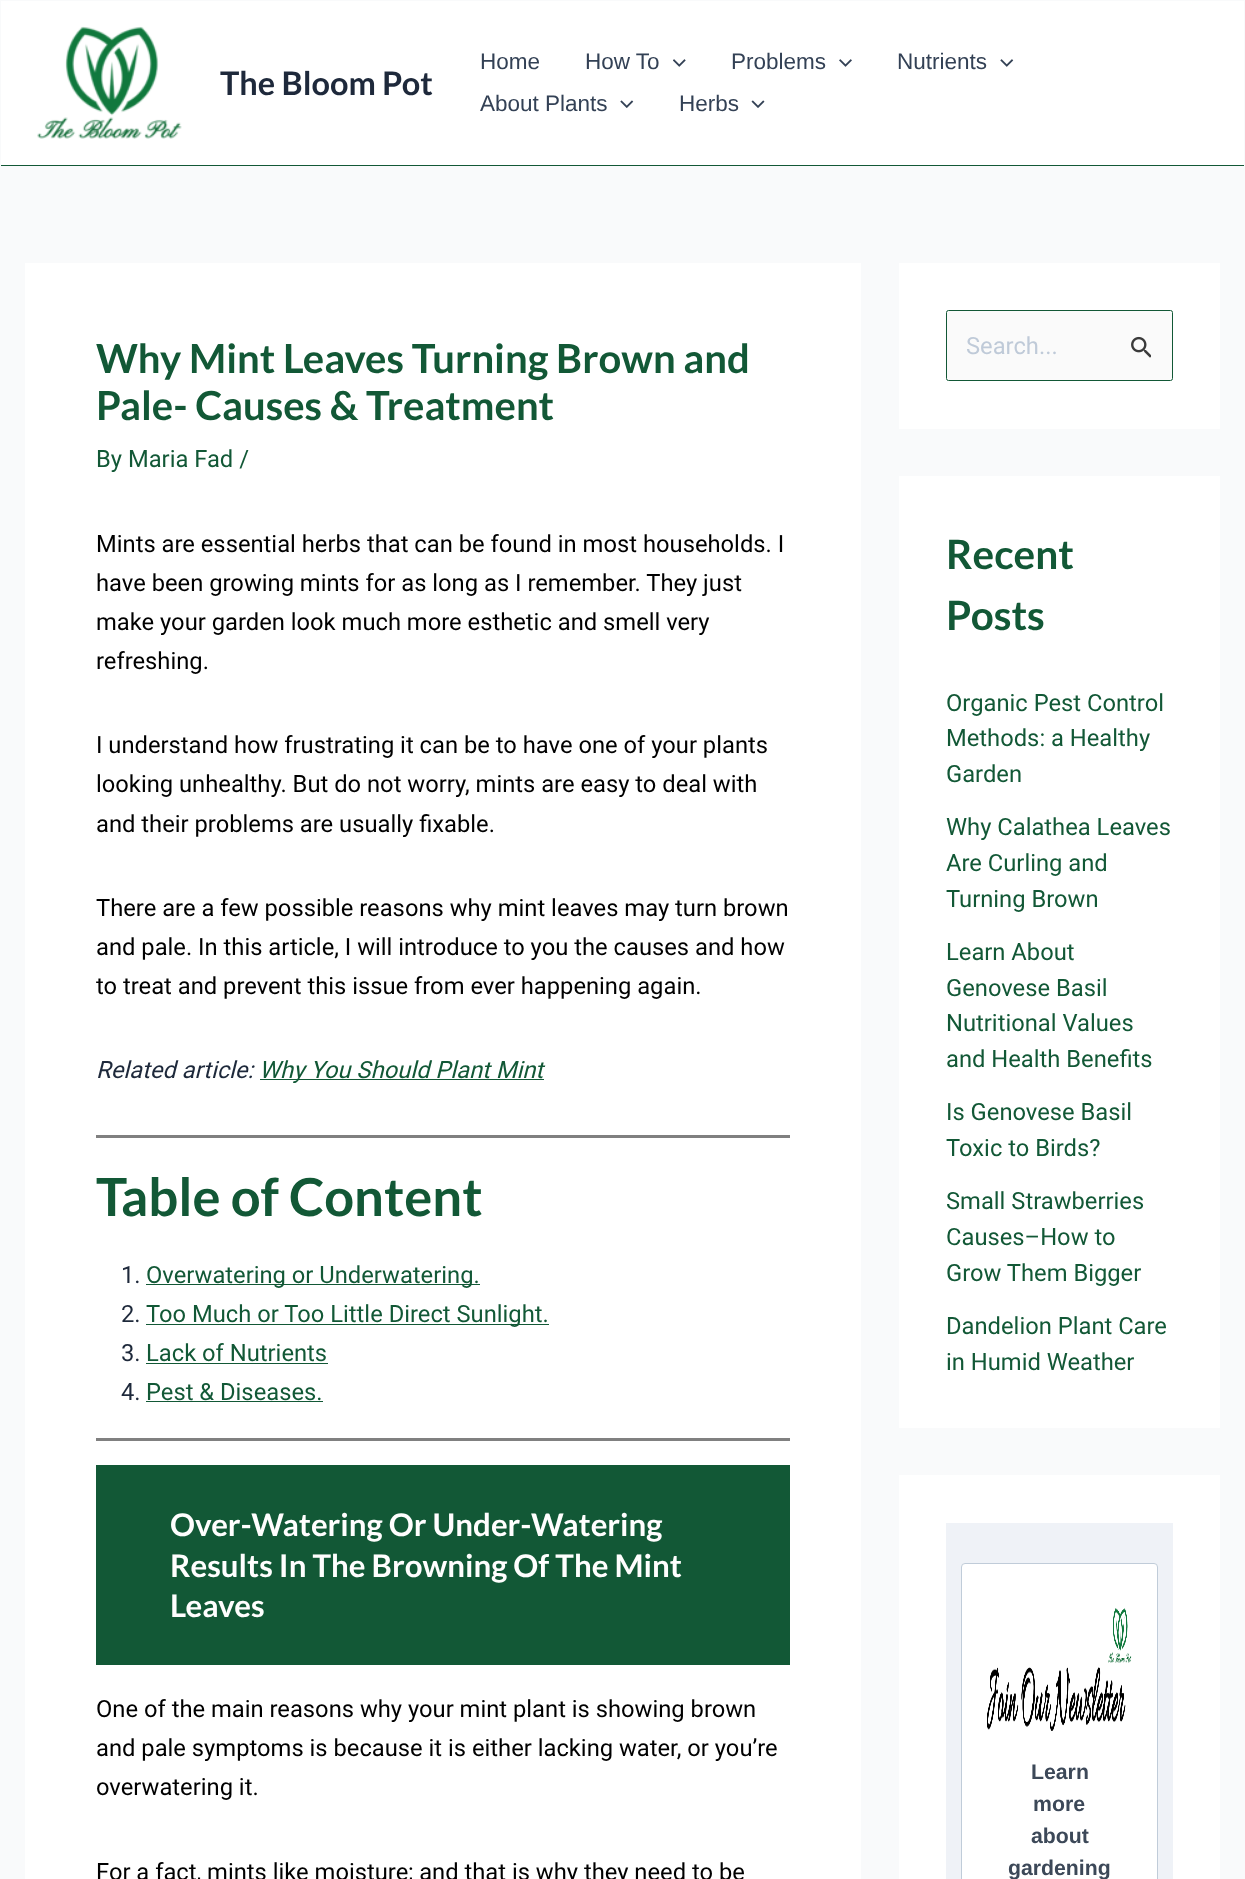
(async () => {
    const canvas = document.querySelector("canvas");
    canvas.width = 1245;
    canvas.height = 1879;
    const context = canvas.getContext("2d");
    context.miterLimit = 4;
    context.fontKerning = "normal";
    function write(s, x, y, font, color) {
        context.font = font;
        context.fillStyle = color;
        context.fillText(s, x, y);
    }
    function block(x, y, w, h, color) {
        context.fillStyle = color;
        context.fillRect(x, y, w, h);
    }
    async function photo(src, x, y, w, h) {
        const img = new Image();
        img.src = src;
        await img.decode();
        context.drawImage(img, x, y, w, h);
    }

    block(0, 0, 1245, 1879, "rgb(249, 250, 251)");
    block(1, 1, 1243, 164, "rgb(255, 255, 255)");
    block(1, 165, 1243, 1, "rgb(18, 88, 54)");
    await photo("media/1.png", 37, 26, 145, 113);
    write("The Bloom Pot", 220, 95, "bold 32.5px Lato", "rgb(30, 41, 59)");
    write("Home", 480, 69, "22.5px Liberation Sans", "rgb(51, 65, 85)");
    write("How To", 585, 69, "22.5px Liberation Sans", "rgb(51, 65, 85)");
    await photo("media/2.png", 673, 59, 13, 8);
    write("Problems", 731, 69, "22.5px Liberation Sans", "rgb(51, 65, 85)");
    await photo("media/3.png", 839, 59, 13, 8);
    write("Nutrients", 897, 69, "22.5px Liberation Sans", "rgb(51, 65, 85)");
    await photo("media/4.png", 1000, 59, 14, 8);
    write("About Plants", 480, 111, "22.5px Liberation Sans", "rgb(51, 65, 85)");
    await photo("media/5.png", 620, 100, 14, 8);
    write("Herbs", 679, 111, "22.5px Liberation Sans", "rgb(51, 65, 85)");
    await photo("media/6.png", 751, 100, 14, 8);
    block(25, 263, 836, 1616, "rgb(255, 255, 255)");
    write("Why Mint Leaves Turning Brown and", 96, 373, "bold 40px Lato", "rgb(18, 88, 54)");
    write("Pale- Causes & Treatment", 96, 420, "bold 40px Lato", "rgb(18, 88, 54)");
    write("By Maria Fad /", 96, 467, "23.75px Roboto", "rgb(18, 88, 54)");
    write("Mints are essential herbs that can be found in most households. I", 96, 552, "23.75px Roboto", "rgb(0, 0, 0)");
    write("have been growing mints for as long as I remember. They just", 96, 591, "23.75px Roboto", "rgb(0, 0, 0)");
    write("make your garden look much more esthetic and smell very", 96, 630, "23.75px Roboto", "rgb(0, 0, 0)");
    write("refreshing.", 96, 669, "23.75px Roboto", "rgb(0, 0, 0)");
    write("I understand how frustrating it can be to have one of your plants", 96, 753, "23.75px Roboto", "rgb(0, 0, 0)");
    write("looking unhealthy. But do not worry, mints are easy to deal with", 96, 792, "23.75px Roboto", "rgb(0, 0, 0)");
    write("and their problems are usually fixable.", 96, 832, "23.75px Roboto", "rgb(0, 0, 0)");
    write("There are a few possible reasons why mint leaves may turn brown", 96, 916, "23.75px Roboto", "rgb(0, 0, 0)");
    write("and pale. In this article, I will introduce to you the causes and how", 96, 955, "23.75px Roboto", "rgb(0, 0, 0)");
    write("to treat and prevent this issue from ever happening again.", 96, 994, "23.75px Roboto", "rgb(0, 0, 0)");
    write("Related article:", 96, 1078, "italic 23.75px Roboto", "rgb(30, 41, 59)");
    block(260, 1079, 284, 1, "rgb(18, 88, 54)");
    write("Why You Should Plant Mint", 259, 1078, "italic 23.75px Roboto", "rgb(18, 88, 54)");
    block(96, 1135, 694, 3, "rgb(128, 128, 128)");
    write("Table of Content", 96, 1216, "bold 52.5px Lato", "rgb(18, 88, 54)");
    write("1.", 121, 1283, "23.75px Roboto", "rgb(30, 41, 59)");
    block(146, 1284, 334, 1, "rgb(18, 88, 54)");
    write("Overwatering or Underwatering.", 146, 1283, "23.75px Roboto", "rgb(18, 88, 54)");
    write("2.", 121, 1322, "23.75px Roboto", "rgb(30, 41, 59)");
    block(146, 1324, 403, 1, "rgb(18, 88, 54)");
    write("Too Much or Too Little Direct Sunlight.", 146, 1322, "23.75px Roboto", "rgb(18, 88, 54)");
    write("3.", 121, 1361, "23.75px Roboto", "rgb(30, 41, 59)");
    write("Lack of Nutrients", 146, 1361, "23.75px Roboto", "rgb(18, 88, 54)");
    block(146, 1363, 182, 1, "rgb(18, 88, 54)");
    write("4.", 121, 1400, "23.75px Roboto", "rgb(30, 41, 59)");
    write("Pest & Diseases.", 146, 1400, "23.75px Roboto", "rgb(18, 88, 54)");
    block(146, 1401, 177, 1, "rgb(18, 88, 54)");
    block(96, 1438, 694, 3, "rgb(128, 128, 128)");
    block(96, 1465, 694, 200, "rgb(18, 88, 54)");
    write("Over-Watering Or Under-Watering", 170, 1536, "bold 31.25px Lato", "rgb(255, 254, 254)");
    write("Results In The Browning Of The Mint", 170, 1577, "bold 31.25px Lato", "rgb(255, 254, 254)");
    write("Leaves", 170, 1617, "bold 31.25px Lato", "rgb(255, 254, 254)");
    write("One of the main reasons why your mint plant is showing brown", 96, 1717, "23.75px Roboto", "rgb(0, 0, 0)");
    write("and pale symptoms is because it is either lacking water, or you’re", 96, 1756, "23.75px Roboto", "rgb(0, 0, 0)");
    write("overwatering it.", 96, 1795, "23.75px Roboto", "rgb(0, 0, 0)");
    write("For a fact, mints like moisture; and that is why they need to be", 96, 1880, "23.75px Roboto", "rgb(0, 0, 0)");
    block(899, 263, 321, 166, "rgb(255, 255, 255)");
    context.fillStyle = "rgb(250, 250, 250)";
    context.beginPath();
    context.roundRect(946.5, 310.5, 226, 70, 2);
    context.fill();
    context.strokeStyle = "rgb(18, 88, 54)";
    context.stroke();
    write("Search...", 966, 354, "23.75px Roboto", "rgb(191, 202, 216)");
    await photo("media/7.png", 1131, 336, 20, 22);
    block(899, 476, 321, 952, "rgb(255, 255, 255)");
    write("Recent", 946, 569, "bold 40.5px Lato", "rgb(18, 88, 54)");
    write("Posts", 946, 630, "bold 40.5px Lato", "rgb(18, 88, 54)");
    write("Organic Pest Control", 946, 711, "23.75px Roboto", "rgb(18, 88, 54)");
    write("Methods: a Healthy", 946, 746, "23.75px Roboto", "rgb(18, 88, 54)");
    write("Garden", 946, 782, "23.75px Roboto", "rgb(18, 88, 54)");
    write("Why Calathea Leaves", 946, 835, "23.75px Roboto", "rgb(18, 88, 54)");
    write("Are Curling and", 946, 871, "23.75px Roboto", "rgb(18, 88, 54)");
    write("Turning Brown", 946, 907, "23.75px Roboto", "rgb(18, 88, 54)");
    write("Learn About", 946, 960, "23.75px Roboto", "rgb(18, 88, 54)");
    write("Genovese Basil", 946, 996, "23.75px Roboto", "rgb(18, 88, 54)");
    write("Nutritional Values", 946, 1031, "23.75px Roboto", "rgb(18, 88, 54)");
    write("and Health Benefits", 946, 1067, "23.75px Roboto", "rgb(18, 88, 54)");
    write("Is Genovese Basil", 946, 1120, "23.75px Roboto", "rgb(18, 88, 54)");
    write("Toxic to Birds?", 946, 1156, "23.75px Roboto", "rgb(18, 88, 54)");
    write("Small Strawberries", 946, 1209, "23.75px Roboto", "rgb(18, 88, 54)");
    write("Causes–How to", 946, 1245, "23.75px Roboto", "rgb(18, 88, 54)");
    write("Grow Them Bigger", 946, 1281, "23.75px Roboto", "rgb(18, 88, 54)");
    write("Dandelion Plant Care", 946, 1334, "23.75px Roboto", "rgb(18, 88, 54)");
    write("in Humid Weather", 946, 1370, "23.75px Roboto", "rgb(18, 88, 54)");
    block(899, 1475, 321, 404, "rgb(255, 255, 255)");
    block(946, 1523, 227, 356, "rgb(239, 242, 247)");
    context.fillStyle = "rgb(255, 255, 255)";
    context.beginPath();
    context.roundRect(961.5, 1563.5, 196, 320, 3.5);
    context.fill();
    context.strokeStyle = "rgb(192, 204, 217)";
    context.stroke();
    await photo("media/8.png", 987, 1608, 145, 123);
    write("Learn", 1031, 1779, "bold 21.25px Liberation Sans", "rgb(60, 72, 88)");
    write("more", 1033, 1811, "bold 21.25px Liberation Sans", "rgb(60, 72, 88)");
    write("about", 1031, 1843, "bold 21.25px Liberation Sans", "rgb(60, 72, 88)");
    write("gardening", 1008, 1875, "bold 21.25px Liberation Sans", "rgb(60, 72, 88)");
})();
